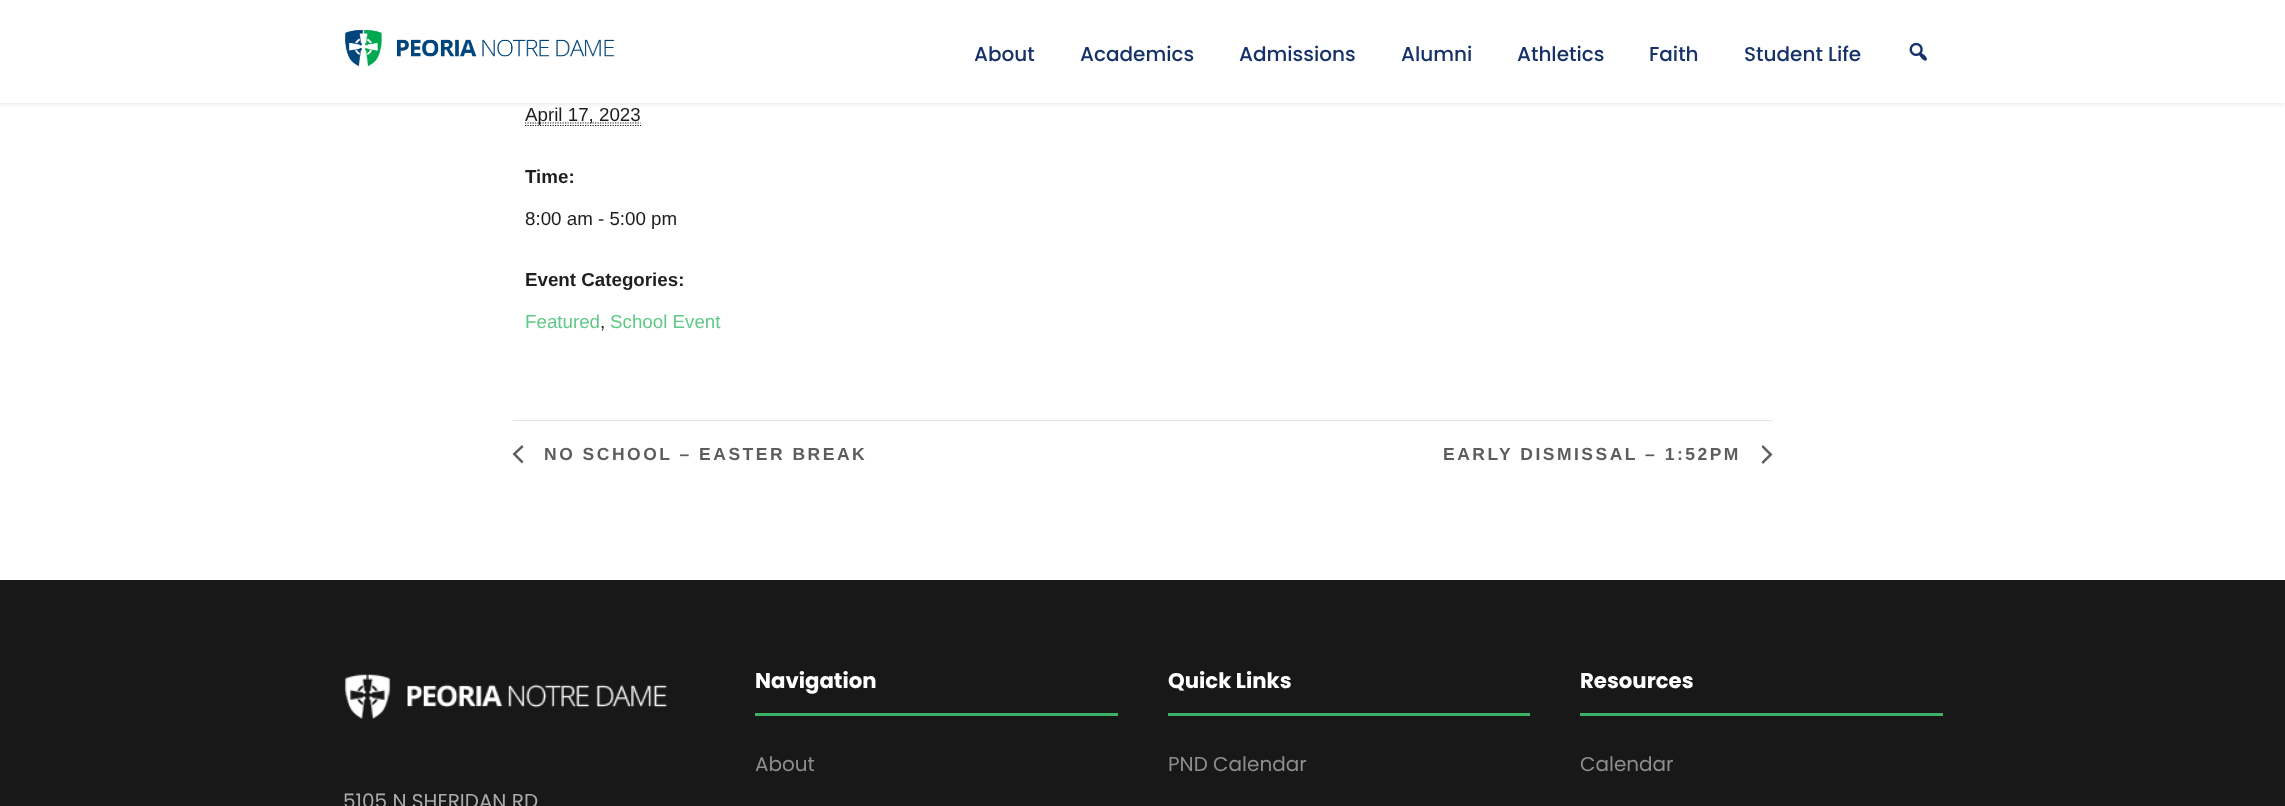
(async () => {
    const canvas = document.querySelector("canvas");
    canvas.width = 2285;
    canvas.height = 806;
    const context = canvas.getContext("2d");
    context.miterLimit = 4;
    context.fontKerning = "normal";
    function write(s, x, y, font, color) {
        context.font = font;
        context.fillStyle = color;
        context.fillText(s, x, y);
    }
    function block(x, y, w, h, color) {
        context.fillStyle = color;
        context.fillRect(x, y, w, h);
    }
    async function photo(src, x, y, w, h) {
        const img = new Image();
        img.src = src;
        await img.decode();
        context.drawImage(img, x, y, w, h);
    }

    block(0, 0, 2285, 806, "rgb(255, 255, 255)");
    context.fillStyle = "rgba(0, 0, 0, 0.1)";
    context.filter = "blur(2.5px)";
    context.beginPath();
    context.rect(0, 1, 2285, 103);
    context.fill();
    context.filter = "none";
    block(0, 0, 2285, 103, "rgb(255, 255, 255)");
    await photo("media/1.png", 345, 30, 270, 37);
    write("About", 974, 61, "500 20px Poppins", "rgb(22, 50, 105)");
    write("Academics", 1080, 61, "500 20px Poppins", "rgb(22, 50, 105)");
    write("Admissions", 1239, 61, "500 20px Poppins", "rgb(22, 50, 105)");
    write("Alumni", 1401, 61, "500 20px Poppins", "rgb(22, 50, 105)");
    write("Athletics", 1517, 61, "500 20px Poppins", "rgb(22, 50, 105)");
    write("Faith", 1649, 61, "500 20px Poppins", "rgb(22, 50, 105)");
    write("Student Life", 1744, 61, "500 20px Poppins", "rgb(22, 50, 105)");
    await photo("media/2.png", 1909, 42, 18, 19);
    context.beginPath();
    context.moveTo(525, 125.5);
    context.lineTo(641, 125.5);
    context.strokeStyle = "rgb(31, 31, 31)";
    context.lineWidth = 1.2;
    context.setLineDash([1.25, 1.25]);
    context.stroke();
    context.beginPath();
    context.moveTo(525, 123);
    context.lineTo(640.5, 123);
    context.stroke();
    write("April 17, 2023", 525, 121, "18.75px Liberation Sans", "rgb(31, 31, 31)");
    write("Time:", 525, 183, "bold 18.75px Liberation Sans", "rgb(31, 31, 31)");
    write("8:00 am - 5:00 pm", 525, 225, "18.75px Liberation Sans", "rgb(31, 31, 31)");
    write("Event Categories:", 525, 286, "bold 18.75px Liberation Sans", "rgb(31, 31, 31)");
    write("Featured", 525, 328, "18.75px Liberation Sans", "rgb(96, 201, 136)");
    write(",", 600, 328, "18.75px Liberation Sans", "rgb(31, 31, 31)");
    write("School Event", 610, 328, "18.75px Liberation Sans", "rgb(96, 201, 136)");
    block(513, 420, 1260, 1, "rgb(228, 228, 228)");
    context.fillStyle = "rgb(93, 93, 93)";
    context.beginPath();
    context.moveTo(523.5, 461.5);
    context.lineTo(522, 463.5);
    context.lineTo(512.5, 454);
    context.lineTo(522, 445);
    context.lineTo(523.5, 447);
    context.lineTo(516, 454);
    context.closePath();
    context.fill();
    context.letterSpacing = "2.5px";
    write("NO SCHOOL – EASTER BREAK", 544, 460, "bold 17.5px Liberation Sans", "rgb(93, 93, 93)");
    write("EARLY DISMISSAL – 1:52PM", 1443, 460, "bold 17.5px Liberation Sans", "rgb(93, 93, 93)");
    context.beginPath();
    context.moveTo(1761.5, 447);
    context.lineTo(1763, 445);
    context.lineTo(1772.5, 454.5);
    context.lineTo(1763, 464);
    context.lineTo(1761.5, 462);
    context.lineTo(1769, 454.5);
    context.closePath();
    context.fill();
    block(0, 580, 2285, 226, "rgb(24, 24, 24)");
    block(755, 713, 363, 3, "rgb(61, 177, 102)");
    context.letterSpacing = "0px";
    write("Navigation", 755, 688, "bold 21.25px Poppins", "rgb(255, 255, 255)");
    write("About", 755, 771, "20px Poppins", "rgb(141, 141, 141)");
    block(1168, 713, 362, 3, "rgb(61, 177, 102)");
    write("Quick Links", 1168, 688, "bold 21.25px Poppins", "rgb(255, 255, 255)");
    write("PND Calendar", 1168, 771, "20px Poppins", "rgb(141, 141, 141)");
    block(1580, 713, 363, 3, "rgb(61, 177, 102)");
    write("Resources", 1580, 688, "bold 21.25px Poppins", "rgb(255, 255, 255)");
    write("Calendar", 1580, 771, "20px Poppins", "rgb(141, 141, 141)");
    await photo("media/3.png", 344, 674, 323, 45);
    write("5105 N SHERIDAN RD", 343, 808, "20px Poppins", "rgb(171, 171, 171)");
})();
